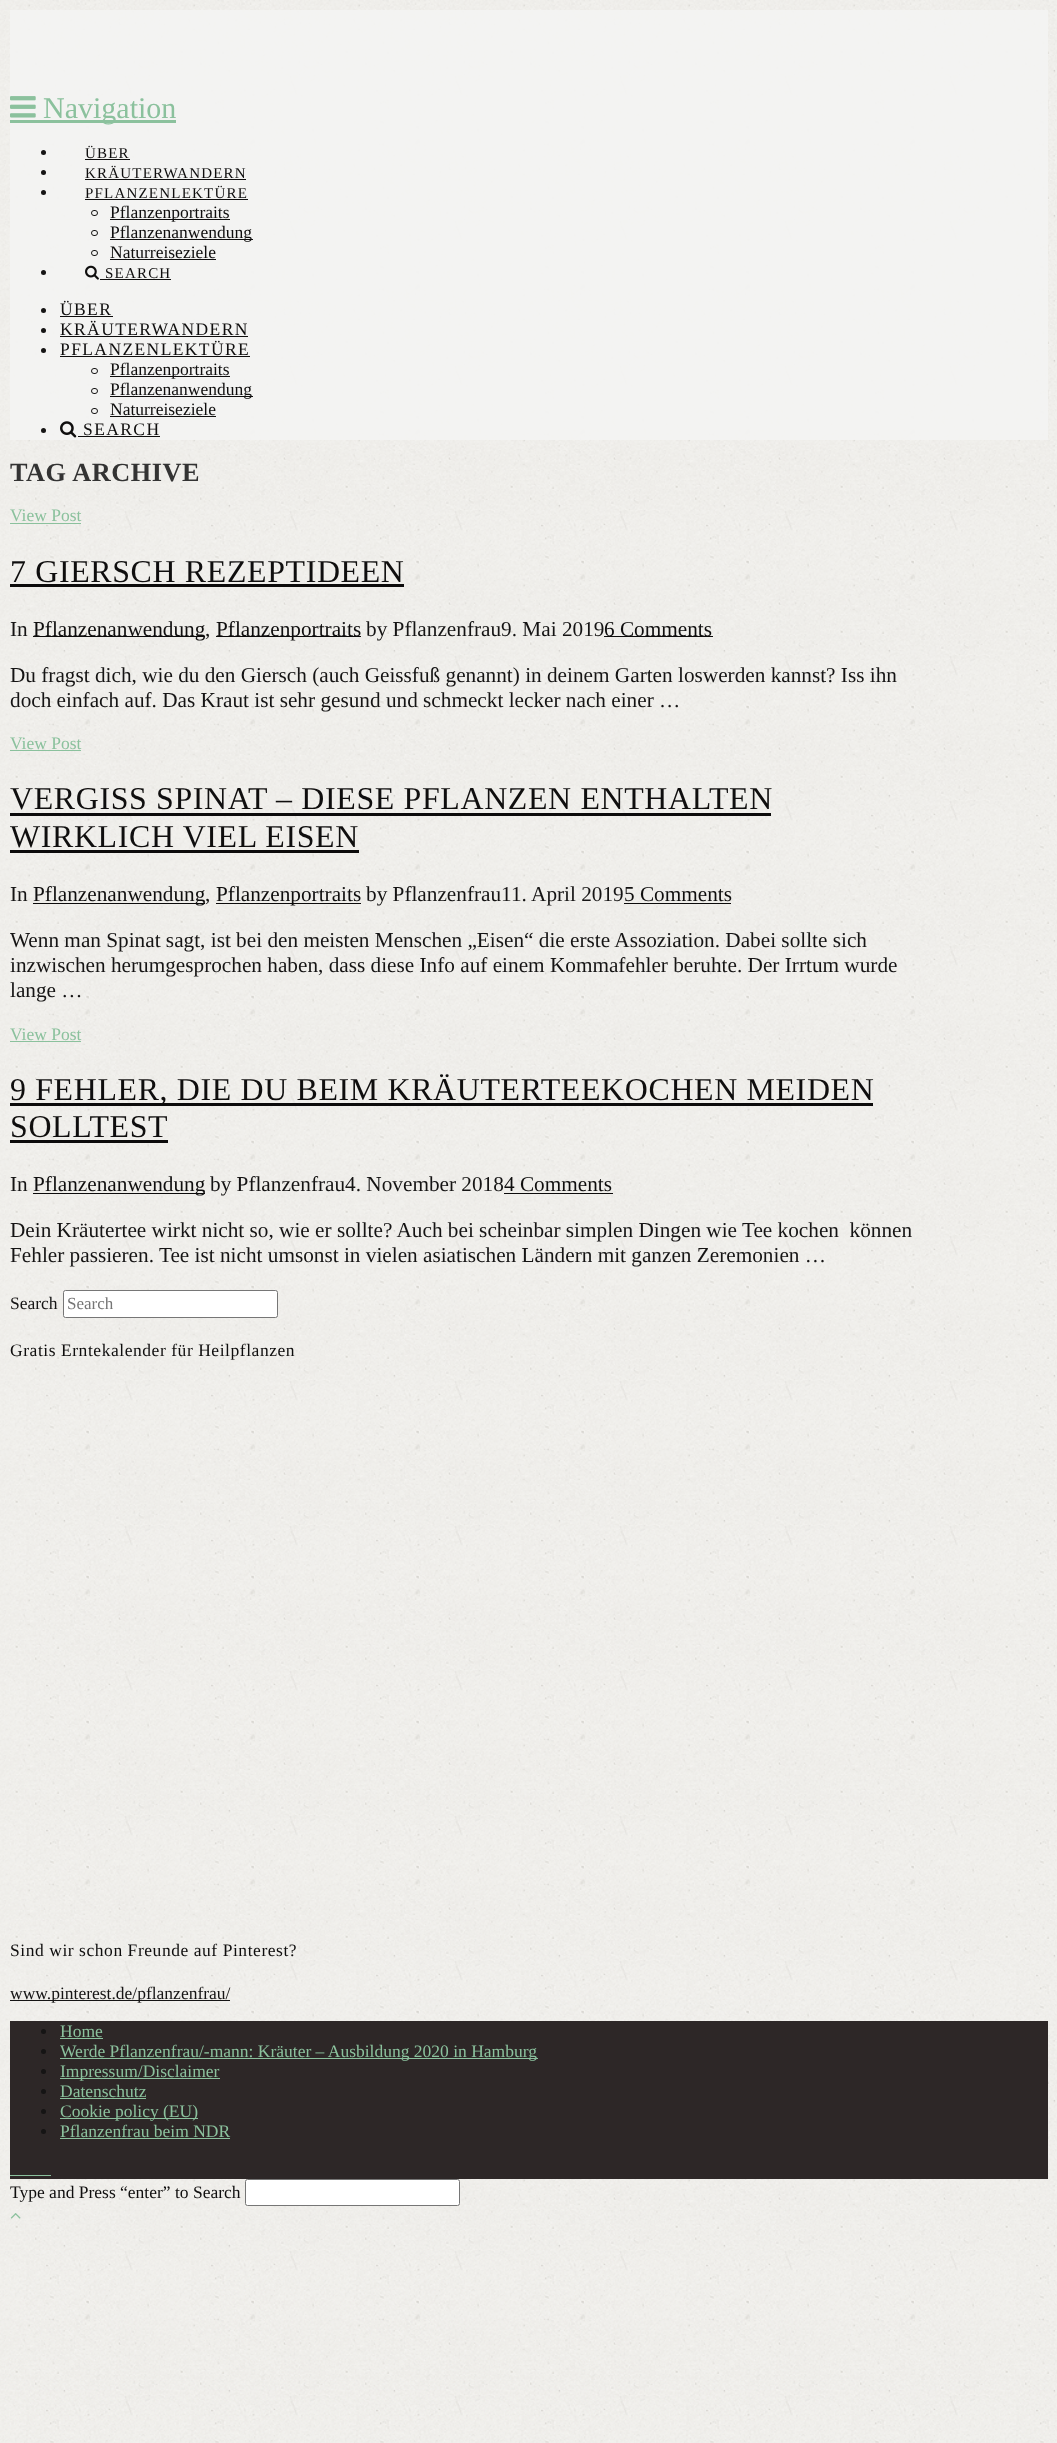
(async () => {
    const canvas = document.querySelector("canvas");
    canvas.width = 1057;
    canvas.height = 2443;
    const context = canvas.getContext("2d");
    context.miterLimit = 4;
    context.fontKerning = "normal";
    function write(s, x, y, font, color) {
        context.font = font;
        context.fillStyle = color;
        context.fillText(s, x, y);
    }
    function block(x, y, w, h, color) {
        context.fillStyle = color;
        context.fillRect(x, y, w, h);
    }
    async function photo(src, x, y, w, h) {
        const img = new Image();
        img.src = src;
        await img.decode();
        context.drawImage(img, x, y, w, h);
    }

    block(0, 0, 1057, 2443, "rgb(255, 255, 255)");
    await photo("media/1.png", 0, 0, 1057, 2443);
    block(10, 10, 1038, 81, "rgba(242, 242, 241, 0.96)");
    block(10, 91, 1038, 349, "rgba(242, 242, 241, 0.96)");
    await photo("media/2.png", 10, 96, 26, 22);
    block(10, 120, 166, 3, "rgb(139, 193, 157)");
    write("Navigation", 43, 118, "30px Liberation Serif", "rgb(139, 193, 157)");
    context.fillStyle = "rgb(21, 20, 20)";
    context.beginPath();
    context.arc(43.5, 152.5, 2.5, 0, Math.PI * 2);
    context.fill();
    context.letterSpacing = "1.2px";
    write("ÜBER", 85, 158, "15px Liberation Serif", "rgb(15, 14, 14)");
    block(85, 159, 45, 1, "rgb(15, 14, 14)");
    context.fillStyle = "rgb(21, 20, 20)";
    context.beginPath();
    context.arc(43.5, 172.5, 2.5, 0, Math.PI * 2);
    context.fill();
    write("KRÄUTERWANDERN", 85, 178, "15px Liberation Serif", "rgb(15, 14, 14)");
    block(85, 179, 161, 1, "rgb(15, 14, 14)");
    context.fillStyle = "rgb(21, 20, 20)";
    context.beginPath();
    context.arc(43.5, 192.5, 2.5, 0, Math.PI * 2);
    context.fill();
    write("PFLANZENLEKTÜRE", 85, 198, "15px Liberation Serif", "rgb(15, 14, 14)");
    block(85, 199, 163, 1, "rgb(15, 14, 14)");
    context.beginPath();
    context.roundRect(91.5, 210.5, 6, 5, 2.5);
    context.strokeStyle = "rgb(21, 20, 20)";
    context.stroke();
    block(110, 219, 120, 1, "rgb(15, 14, 14)");
    context.letterSpacing = "0px";
    write("Pflanzenportraits", 110, 218, "17.5px Liberation Serif", "rgb(15, 14, 14)");
    context.beginPath();
    context.roundRect(91.5, 230.5, 6, 5, 2.5);
    context.stroke();
    block(110, 239, 143, 1, "rgb(15, 14, 14)");
    write("Pflanzenanwendung", 110, 238, "17.5px Liberation Serif", "rgb(15, 14, 14)");
    context.beginPath();
    context.roundRect(91.5, 250.5, 6, 5, 2.5);
    context.stroke();
    write("Naturreiseziele", 110, 258, "17.5px Liberation Serif", "rgb(15, 14, 14)");
    block(110, 259, 106, 1, "rgb(15, 14, 14)");
    context.fillStyle = "rgb(21, 20, 20)";
    context.beginPath();
    context.arc(43.5, 272.5, 2.5, 0, Math.PI * 2);
    context.fill();
    await photo("media/3.png", 85, 265, 14, 15);
    context.letterSpacing = "1.2px";
    write("SEARCH", 105, 278, "15px Liberation Serif", "rgb(15, 14, 14)");
    block(100, 279, 71, 1, "rgb(15, 14, 14)");
    context.fillStyle = "rgb(21, 20, 20)";
    context.beginPath();
    context.arc(43.5, 310.5, 2.5, 0, Math.PI * 2);
    context.fill();
    context.letterSpacing = "1.4px";
    write("ÜBER", 60, 315, "17.5px Liberation Serif", "rgb(15, 14, 14)");
    block(60, 316, 53, 1, "rgb(15, 14, 14)");
    context.fillStyle = "rgb(21, 20, 20)";
    context.beginPath();
    context.arc(43.5, 330.5, 2.5, 0, Math.PI * 2);
    context.fill();
    write("KRÄUTERWANDERN", 60, 335, "17.5px Liberation Serif", "rgb(15, 14, 14)");
    block(60, 336, 188, 1, "rgb(15, 14, 14)");
    context.fillStyle = "rgb(21, 20, 20)";
    context.beginPath();
    context.arc(43.5, 350.5, 2.5, 0, Math.PI * 2);
    context.fill();
    write("PFLANZENLEKTÜRE", 60, 355, "17.5px Liberation Serif", "rgb(15, 14, 14)");
    block(60, 356, 190, 1, "rgb(15, 14, 14)");
    context.beginPath();
    context.roundRect(91.5, 368.5, 6, 5, 2.5);
    context.stroke();
    block(110, 376, 120, 1, "rgb(15, 14, 14)");
    context.letterSpacing = "0px";
    write("Pflanzenportraits", 110, 375, "17.5px Liberation Serif", "rgb(15, 14, 14)");
    context.beginPath();
    context.roundRect(91.5, 388.5, 6, 5, 2.5);
    context.stroke();
    block(110, 396, 143, 1, "rgb(15, 14, 14)");
    write("Pflanzenanwendung", 110, 395, "17.5px Liberation Serif", "rgb(15, 14, 14)");
    context.beginPath();
    context.roundRect(91.5, 408.5, 6, 5, 2.5);
    context.stroke();
    write("Naturreiseziele", 110, 415, "17.5px Liberation Serif", "rgb(15, 14, 14)");
    block(110, 416, 106, 1, "rgb(15, 14, 14)");
    context.fillStyle = "rgb(21, 20, 20)";
    context.beginPath();
    context.arc(43.5, 430.5, 2.5, 0, Math.PI * 2);
    context.fill();
    await photo("media/4.png", 60, 421, 17, 17);
    context.letterSpacing = "1.4px";
    write("SEARCH", 83, 435, "17.5px Liberation Serif", "rgb(15, 14, 14)");
    block(78, 436, 82, 1, "rgb(15, 14, 14)");
    context.letterSpacing = "0.55px";
    write("TAG ARCHIVE", 10, 481, "bold 26.25px Liberation Serif", "rgb(51, 51, 51)");
    context.letterSpacing = "0px";
    write("View Post", 10, 521, "17.5px Liberation Serif", "rgb(139, 193, 157)");
    block(10, 523, 71, 1, "rgb(139, 193, 157)");
    context.letterSpacing = "0.65px";
    write("7 GIERSCH REZEPTIDEEN", 10, 582, "31.9px Liberation Serif", "rgb(15, 14, 14)");
    block(10, 584, 394, 3, "rgb(12, 11, 11)");
    context.letterSpacing = "0px";
    write("In", 10, 636, "21.25px Liberation Serif", "rgb(21, 20, 20)");
    block(33, 636, 172, 1, "rgb(12, 11, 11)");
    write("Pflanzenanwendung", 33, 636, "21.25px Liberation Serif", "rgb(15, 14, 14)");
    write(",", 205, 636, "21.25px Liberation Serif", "rgb(21, 20, 20)");
    block(216, 636, 145, 1, "rgb(12, 11, 11)");
    write("Pflanzenportraits", 216, 636, "21.25px Liberation Serif", "rgb(15, 14, 14)");
    write("by Pflanzenfrau9. Mai 2019", 366, 636, "21.25px Liberation Serif", "rgb(21, 20, 20)");
    block(604, 636, 109, 1, "rgb(12, 11, 11)");
    write("6 Comments", 604, 636, "21.25px Liberation Serif", "rgb(15, 14, 14)");
    write("Du fragst dich, wie du den Giersch (auch Geissfuß genannt) in deinem Garten loswerden kannst? Iss ihn", 10, 682, "21.25px Liberation Serif", "rgb(21, 20, 20)");
    write("doch einfach auf. Das Kraut ist sehr gesund und schmeckt lecker nach einer …", 10, 707, "21.25px Liberation Serif", "rgb(21, 20, 20)");
    write("View Post", 10, 749, "17.5px Liberation Serif", "rgb(139, 193, 157)");
    block(10, 750, 71, 1, "rgb(139, 193, 157)");
    context.letterSpacing = "0.65px";
    write("VERGISS SPINAT – DIESE PFLANZEN ENTHALTEN", 10, 809, "31.9px Liberation Serif", "rgb(15, 14, 14)");
    block(10, 813, 761, 3, "rgb(12, 11, 11)");
    write("WIRKLICH VIEL EISEN", 10, 847, "31.9px Liberation Serif", "rgb(15, 14, 14)");
    block(10, 850, 349, 3, "rgb(12, 11, 11)");
    context.letterSpacing = "0px";
    write("In", 10, 901, "21.25px Liberation Serif", "rgb(21, 20, 20)");
    block(33, 903, 172, 1, "rgb(12, 11, 11)");
    write("Pflanzenanwendung", 33, 901, "21.25px Liberation Serif", "rgb(15, 14, 14)");
    write(",", 205, 901, "21.25px Liberation Serif", "rgb(21, 20, 20)");
    block(216, 903, 145, 1, "rgb(12, 11, 11)");
    write("Pflanzenportraits", 216, 901, "21.25px Liberation Serif", "rgb(15, 14, 14)");
    write("by Pflanzenfrau11. April 2019", 366, 901, "21.25px Liberation Serif", "rgb(21, 20, 20)");
    write("5 Comments", 624, 901, "21.25px Liberation Serif", "rgb(15, 14, 14)");
    block(624, 903, 107, 1, "rgb(12, 11, 11)");
    write("Wenn man Spinat sagt, ist bei den meisten Menschen „Eisen“ die erste Assoziation. Dabei sollte sich", 10, 947, "21.25px Liberation Serif", "rgb(21, 20, 20)");
    write("inzwischen herumgesprochen haben, dass diese Info auf einem Kommafehler beruhte. Der Irrtum wurde", 10, 972, "21.25px Liberation Serif", "rgb(21, 20, 20)");
    write("lange …", 10, 997, "21.25px Liberation Serif", "rgb(21, 20, 20)");
    write("View Post", 10, 1040, "17.5px Liberation Serif", "rgb(139, 193, 157)");
    block(10, 1041, 71, 1, "rgb(139, 193, 157)");
    block(10, 1103, 863, 3, "rgb(12, 11, 11)");
    context.letterSpacing = "0.65px";
    write("9 FEHLER, DIE DU BEIM KRÄUTERTEEKOCHEN MEIDEN", 10, 1100, "31.9px Liberation Serif", "rgb(15, 14, 14)");
    write("SOLLTEST", 10, 1137, "31.9px Liberation Serif", "rgb(15, 14, 14)");
    block(10, 1140, 158, 3, "rgb(12, 11, 11)");
    context.letterSpacing = "0px";
    write("In", 10, 1191, "21.25px Liberation Serif", "rgb(21, 20, 20)");
    block(33, 1193, 172, 1, "rgb(12, 11, 11)");
    write("Pflanzenanwendung", 33, 1191, "21.25px Liberation Serif", "rgb(15, 14, 14)");
    write("by Pflanzenfrau4. November 2018", 210, 1191, "21.25px Liberation Serif", "rgb(21, 20, 20)");
    write("4 Comments", 504, 1191, "21.25px Liberation Serif", "rgb(15, 14, 14)");
    block(504, 1193, 109, 1, "rgb(12, 11, 11)");
    write("Dein Kräutertee wirkt nicht so, wie er sollte? Auch bei scheinbar simplen Dingen wie Tee kochen  können", 10, 1237, "21.25px Liberation Serif", "rgb(21, 20, 20)");
    write("Fehler passieren. Tee ist nicht umsonst in vielen asiatischen Ländern mit ganzen Zeremonien …", 10, 1262, "21.25px Liberation Serif", "rgb(21, 20, 20)");
    write("Search", 10, 1309, "17.5px Liberation Serif", "rgb(21, 20, 20)");
    context.fillStyle = "rgb(255, 255, 255)";
    context.beginPath();
    context.roundRect(63.5, 1290.5, 214, 27, 2);
    context.fill();
    context.strokeStyle = "rgb(118, 118, 118)";
    context.stroke();
    write("Search", 67, 1309, "17px Liberation Serif", "rgb(117, 117, 117)");
    context.letterSpacing = "0.55px";
    write("Gratis Erntekalender für Heilpflanzen", 10, 1356, "17.5px Liberation Serif", "rgb(15, 14, 14)");
    write("Sind wir schon Freunde auf Pinterest?", 10, 1956, "17.5px Liberation Serif", "rgb(15, 14, 14)");
    block(10, 2000, 220, 1, "rgb(21, 20, 20)");
    context.letterSpacing = "0px";
    write("www.pinterest.de/pflanzenfrau/", 10, 1999, "17.5px Liberation Serif", "rgb(21, 20, 20)");
    block(10, 2021, 1038, 158, "rgb(45, 39, 39)");
    context.fillStyle = "rgb(21, 20, 20)";
    context.beginPath();
    context.arc(43.5, 2031.5, 2.5, 0, Math.PI * 2);
    context.fill();
    write("Home", 60, 2037, "17.5px Liberation Serif", "rgb(139, 193, 157)");
    block(60, 2038, 43, 1, "rgb(139, 193, 157)");
    context.fillStyle = "rgb(21, 20, 20)";
    context.beginPath();
    context.arc(43.5, 2051.5, 2.5, 0, Math.PI * 2);
    context.fill();
    block(60, 2058, 478, 1, "rgb(139, 193, 157)");
    write("Werde Pflanzenfrau/-mann: Kräuter – Ausbildung 2020 in Hamburg", 60, 2057, "17.5px Liberation Serif", "rgb(139, 193, 157)");
    context.fillStyle = "rgb(21, 20, 20)";
    context.beginPath();
    context.arc(43.5, 2071.5, 2.5, 0, Math.PI * 2);
    context.fill();
    block(60, 2078, 160, 1, "rgb(139, 193, 157)");
    write("Impressum/Disclaimer", 60, 2077, "17.5px Liberation Serif", "rgb(139, 193, 157)");
    context.fillStyle = "rgb(21, 20, 20)";
    context.beginPath();
    context.arc(43.5, 2091.5, 2.5, 0, Math.PI * 2);
    context.fill();
    write("Datenschutz", 60, 2097, "17.5px Liberation Serif", "rgb(139, 193, 157)");
    block(60, 2098, 86, 1, "rgb(139, 193, 157)");
    context.fillStyle = "rgb(21, 20, 20)";
    context.beginPath();
    context.arc(43.5, 2111.5, 2.5, 0, Math.PI * 2);
    context.fill();
    block(60, 2118, 138, 1, "rgb(139, 193, 157)");
    write("Cookie policy (EU)", 60, 2117, "17.5px Liberation Serif", "rgb(139, 193, 157)");
    context.fillStyle = "rgb(21, 20, 20)";
    context.beginPath();
    context.arc(43.5, 2131.5, 2.5, 0, Math.PI * 2);
    context.fill();
    write("Pflanzenfrau beim NDR", 60, 2137, "17.5px Liberation Serif", "rgb(139, 193, 157)");
    block(60, 2138, 170, 1, "rgb(139, 193, 157)");
    block(10, 2175, 41, 1, "rgb(139, 193, 157)");
    write("Type and Press “enter” to Search", 10, 2198, "17.5px Liberation Serif", "rgb(15, 14, 14)");
    context.fillStyle = "rgb(255, 255, 255)";
    context.beginPath();
    context.roundRect(245.5, 2179.5, 214, 26, 2);
    context.fill();
    context.stroke();
    await photo("media/5.png", 10, 2213, 11, 6);
})();
